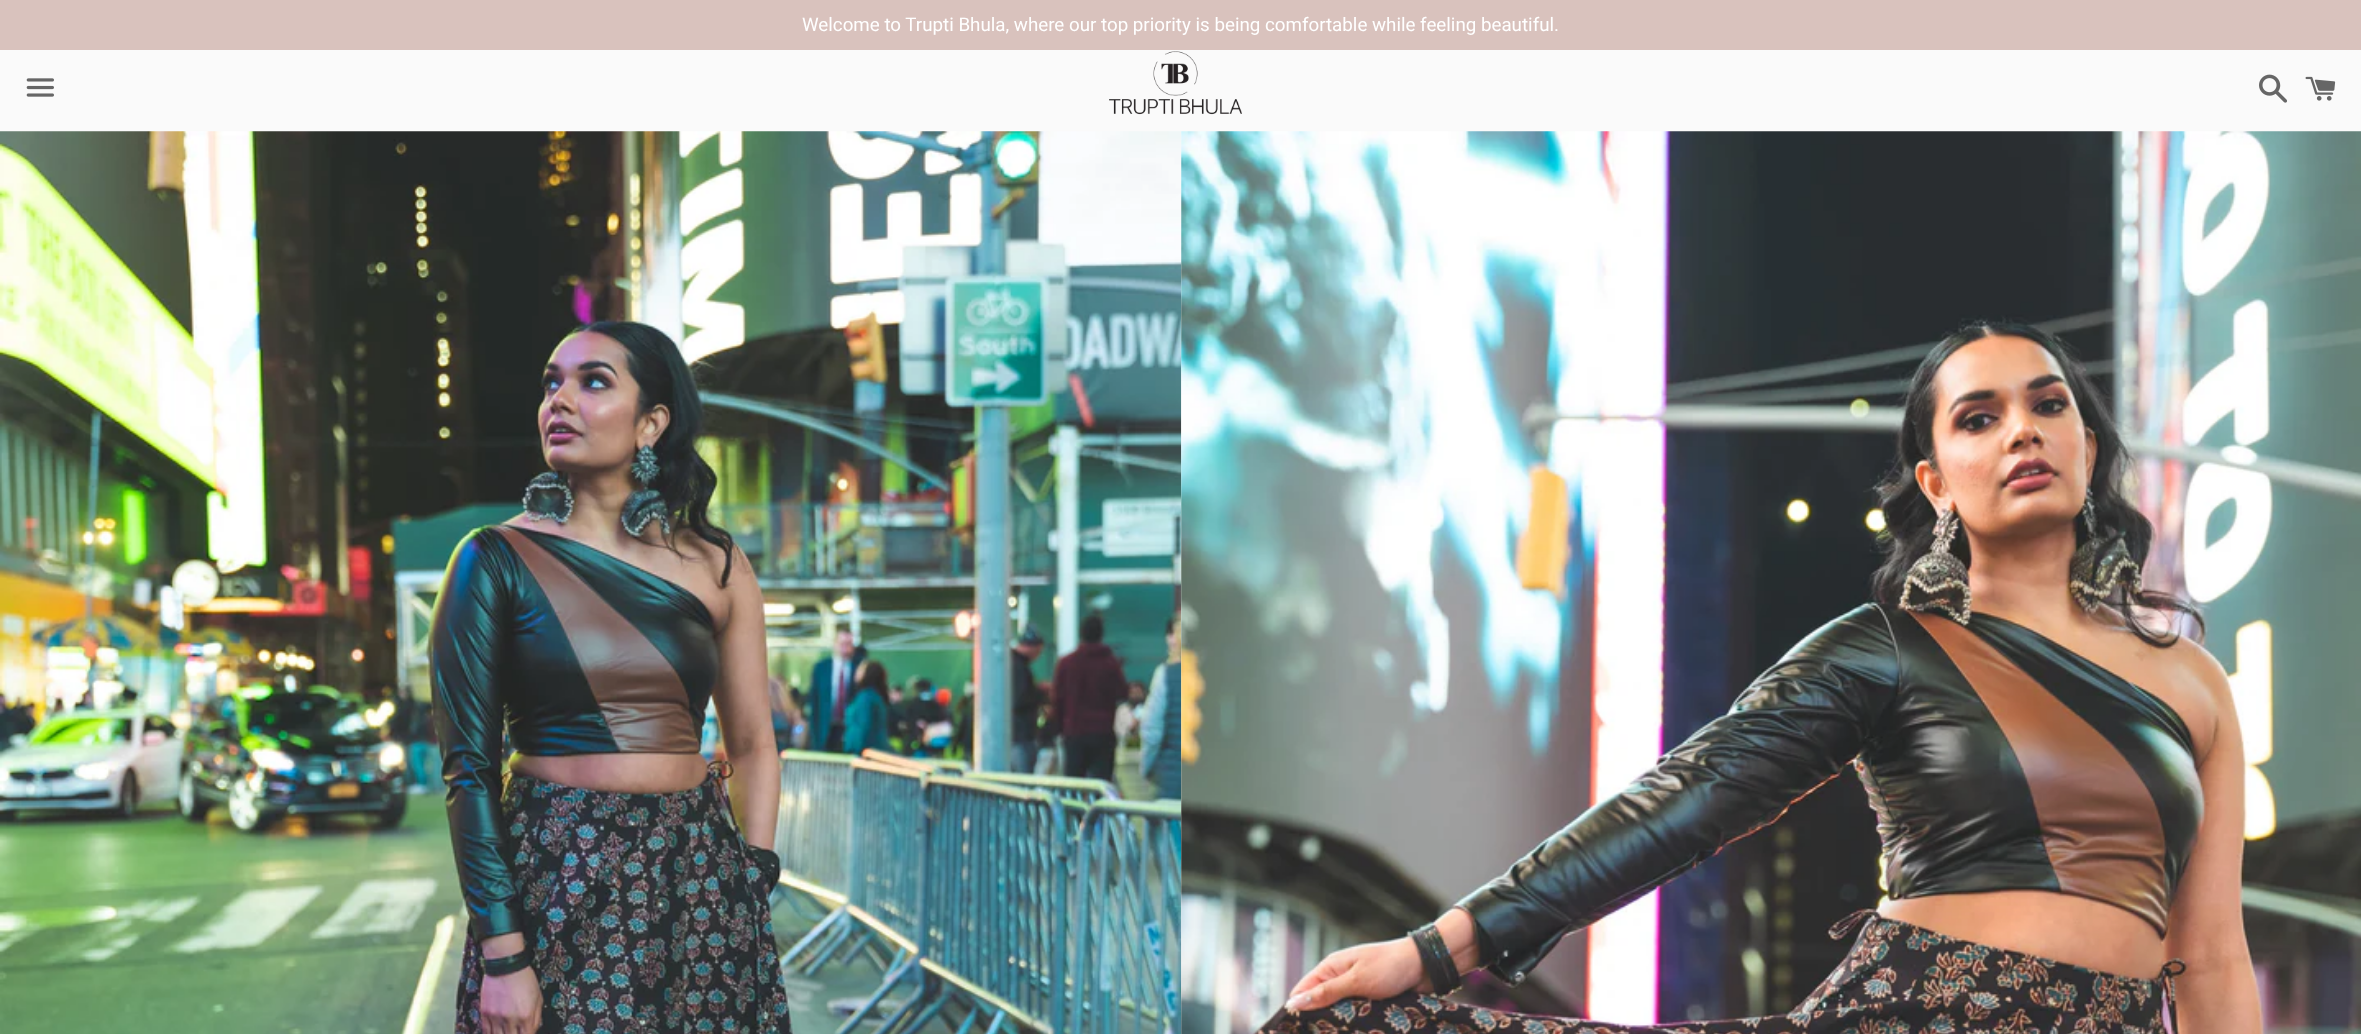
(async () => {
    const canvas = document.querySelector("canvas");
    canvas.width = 2361;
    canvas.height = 1034;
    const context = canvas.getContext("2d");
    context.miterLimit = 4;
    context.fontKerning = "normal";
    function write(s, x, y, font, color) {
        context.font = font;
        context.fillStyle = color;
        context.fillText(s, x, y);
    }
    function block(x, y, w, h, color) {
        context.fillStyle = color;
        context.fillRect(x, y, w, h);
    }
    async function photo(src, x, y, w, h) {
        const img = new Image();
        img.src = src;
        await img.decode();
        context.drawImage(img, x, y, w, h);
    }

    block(0, 0, 2361, 1034, "rgb(250, 250, 250)");
    block(0, 0, 2361, 50, "rgb(217, 194, 189)");
    write("Welcome to Trupti Bhula, where our top priority is being comfortable while feeling beautiful.", 802, 31, "18.75px Roboto", "rgb(255, 255, 255)");
    await photo("media/1.png", 26, 78, 28, 19);
    await photo("media/2.png", 1109, 51, 133, 64);
    await photo("media/3.png", 2259, 74, 28, 29);
    await photo("media/4.png", 2305, 76, 31, 25);
    await photo("media/5.png", 0, 131, 1182, 903);
    await photo("media/6.png", 1181, 131, 1180, 903);
})();
